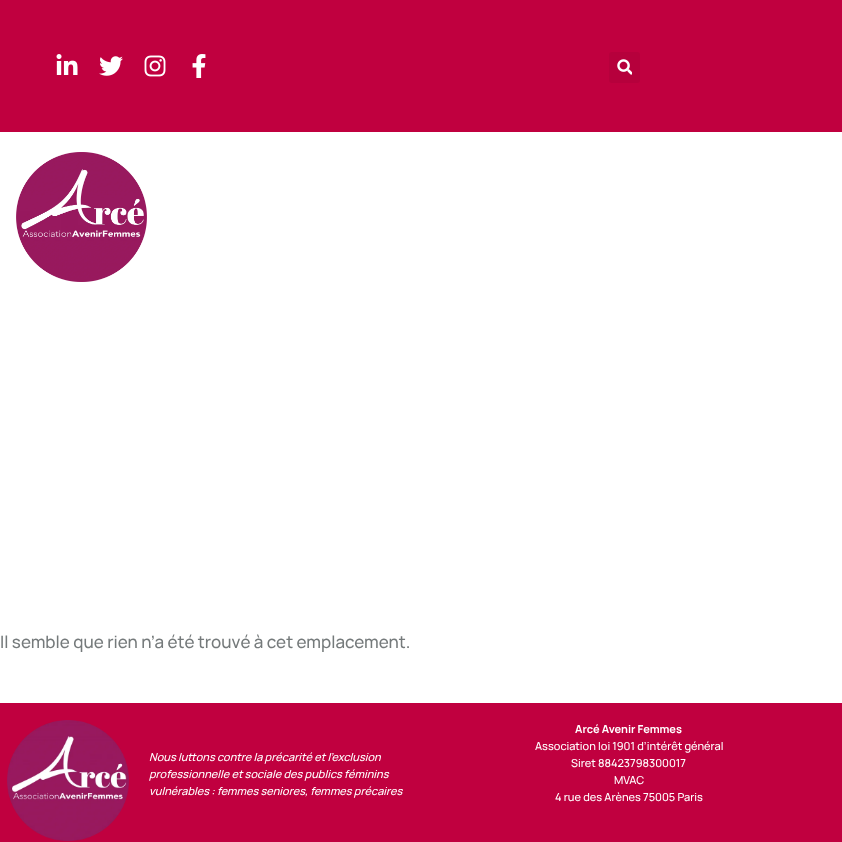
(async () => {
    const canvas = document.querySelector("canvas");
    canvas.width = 842;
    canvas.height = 842;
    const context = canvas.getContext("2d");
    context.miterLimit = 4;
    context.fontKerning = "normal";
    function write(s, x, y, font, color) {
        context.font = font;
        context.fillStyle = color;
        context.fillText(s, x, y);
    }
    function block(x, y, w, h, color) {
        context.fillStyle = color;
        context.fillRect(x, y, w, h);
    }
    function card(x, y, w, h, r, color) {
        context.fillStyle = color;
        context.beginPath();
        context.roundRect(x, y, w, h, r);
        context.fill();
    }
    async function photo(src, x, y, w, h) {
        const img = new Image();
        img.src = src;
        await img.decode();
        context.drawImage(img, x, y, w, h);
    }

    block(0, 0, 842, 842, "rgb(255, 255, 255)");
    block(0, 0, 842, 132, "rgb(192, 0, 63)");
    await photo("media/1.png", 56, 54, 22, 21);
    await photo("media/2.png", 99, 56, 24, 20);
    await photo("media/3.png", 144, 55, 22, 22);
    await photo("media/4.png", 192, 54, 14, 24);
    card(609, 52, 31, 31, 3, "rgb(182, 0, 60)");
    await photo("media/5.png", 617, 59, 15, 16);
    await photo("media/6.png", 16, 152, 131, 130);
    write("Il semble que rien n’a été trouvé à cet emplacement.", 0, 648, "500 17px Manrope", "rgb(117, 122, 123)");
    block(0, 703, 842, 139, "rgb(192, 0, 63)");
    await photo("media/7.png", 7, 720, 122, 121);
    write("Nous luttons contre la précarité et l’exclusion", 149, 761, "italic 500 11px Manrope", "rgb(255, 255, 255)");
    write("professionnelle et sociale des publics féminins", 149, 778, "italic 500 11px Manrope", "rgb(255, 255, 255)");
    write("vulnérables : femmes seniores, femmes précaires", 149, 795, "italic 500 11px Manrope", "rgb(255, 255, 255)");
    write("Arcé Avenir Femmes", 575, 733, "bold 11px Manrope", "rgb(255, 255, 255)");
    write("Association loi 1901 d’intérêt général", 535, 750, "500 11px Manrope", "rgb(255, 255, 255)");
    write("Siret 88423798300017", 571, 767, "500 11px Manrope", "rgb(255, 255, 255)");
    write("MVAC", 614, 784, "500 11px Manrope", "rgb(255, 255, 255)");
    write("4 rue des Arènes 75005 Paris", 555, 801, "500 11px Manrope", "rgb(255, 255, 255)");
})();
